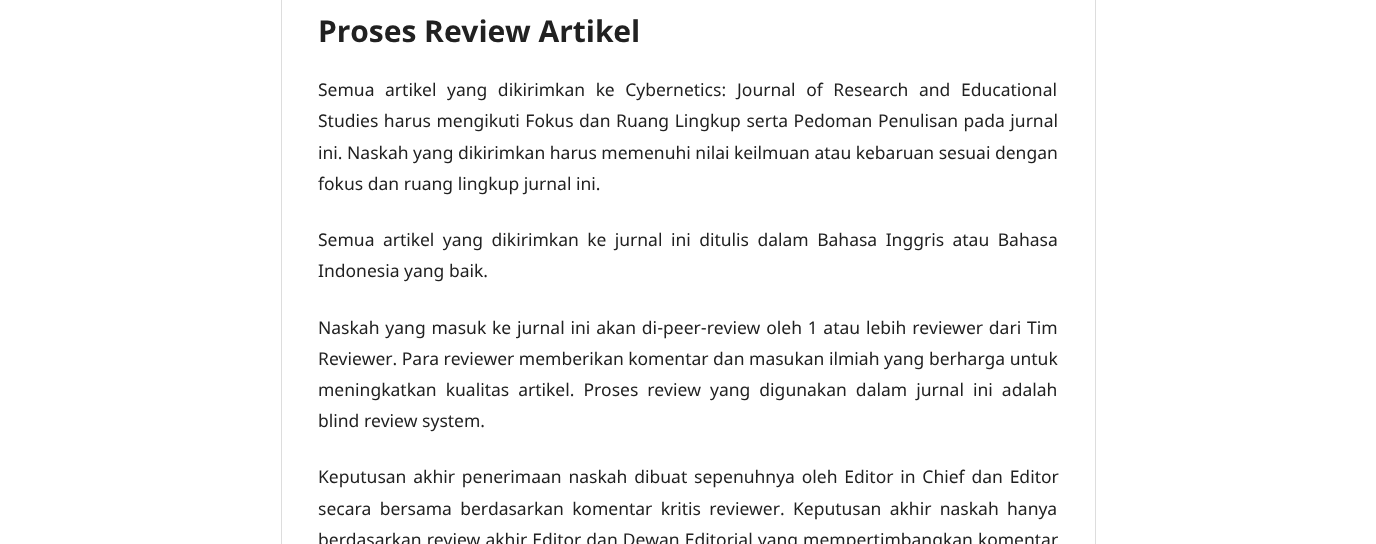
(async () => {
    const canvas = document.querySelector("canvas");
    canvas.width = 1376;
    canvas.height = 544;
    const context = canvas.getContext("2d");
    context.miterLimit = 4;
    context.fontKerning = "normal";
    function write(s, x, y, font, color) {
        context.font = font;
        context.fillStyle = color;
        context.fillText(s, x, y);
    }
    function block(x, y, w, h, color) {
        context.fillStyle = color;
        context.fillRect(x, y, w, h);
    }

    block(0, 0, 1376, 544, "rgb(255, 255, 255)");
    block(281, 0, 1, 544, "rgb(221, 221, 221)");
    write("Proses Review Artikel", 318, 42, "bold 30px Noto Sans", "rgb(33, 33, 33)");
    context.wordSpacing = "6px";
    write("Semua artikel yang dikirimkan ke Cybernetics: Journal of Research and Educational", 318, 96, "17.5px Noto Sans", "rgb(33, 33, 33)");
    context.wordSpacing = "1px";
    write("Studies harus mengikuti Fokus dan Ruang Lingkup serta Pedoman Penulisan pada jurnal", 318, 127, "17.5px Noto Sans", "rgb(33, 33, 33)");
    context.wordSpacing = "0px";
    write("ini. Naskah yang dikirimkan harus memenuhi nilai keilmuan atau kebaruan sesuai dengan", 318, 159, "17.5px Noto Sans", "rgb(33, 33, 33)");
    write("fokus dan ruang lingkup jurnal ini.", 318, 190, "17.5px Noto Sans", "rgb(33, 33, 33)");
    context.wordSpacing = "3.9px";
    write("Semua artikel yang dikirimkan ke jurnal ini ditulis dalam Bahasa Inggris atau Bahasa", 318, 246, "17.5px Noto Sans", "rgb(33, 33, 33)");
    context.wordSpacing = "0px";
    write("Indonesia yang baik.", 318, 277, "17.5px Noto Sans", "rgb(33, 33, 33)");
    context.wordSpacing = "1.3px";
    write("Naskah yang masuk ke jurnal ini akan di-peer-review oleh 1 atau lebih reviewer dari Tim", 318, 334, "17.5px Noto Sans", "rgb(33, 33, 33)");
    context.wordSpacing = "0px";
    write("Reviewer. Para reviewer memberikan komentar dan masukan ilmiah yang berharga untuk", 318, 365, "17.5px Noto Sans", "rgb(33, 33, 33)");
    context.wordSpacing = "4.5px";
    write("meningkatkan kualitas artikel. Proses review yang digunakan dalam jurnal ini adalah", 318, 396, "17.5px Noto Sans", "rgb(33, 33, 33)");
    context.wordSpacing = "0px";
    write("blind review system.", 318, 427, "17.5px Noto Sans", "rgb(33, 33, 33)");
    context.wordSpacing = "2.25px";
    write("Keputusan akhir penerimaan naskah dibuat sepenuhnya oleh Editor in Chief dan Editor", 318, 483, "17.5px Noto Sans", "rgb(33, 33, 33)");
    context.wordSpacing = "3.75px";
    write("secara bersama berdasarkan komentar kritis reviewer. Keputusan akhir naskah hanya", 318, 515, "17.5px Noto Sans", "rgb(33, 33, 33)");
    context.wordSpacing = "0.5px";
    write("berdasarkan review akhir Editor dan Dewan Editorial yang mempertimbangkan komentar", 318, 546, "17.5px Noto Sans", "rgb(33, 33, 33)");
    block(1095, 0, 1, 544, "rgb(221, 221, 221)");
})();
